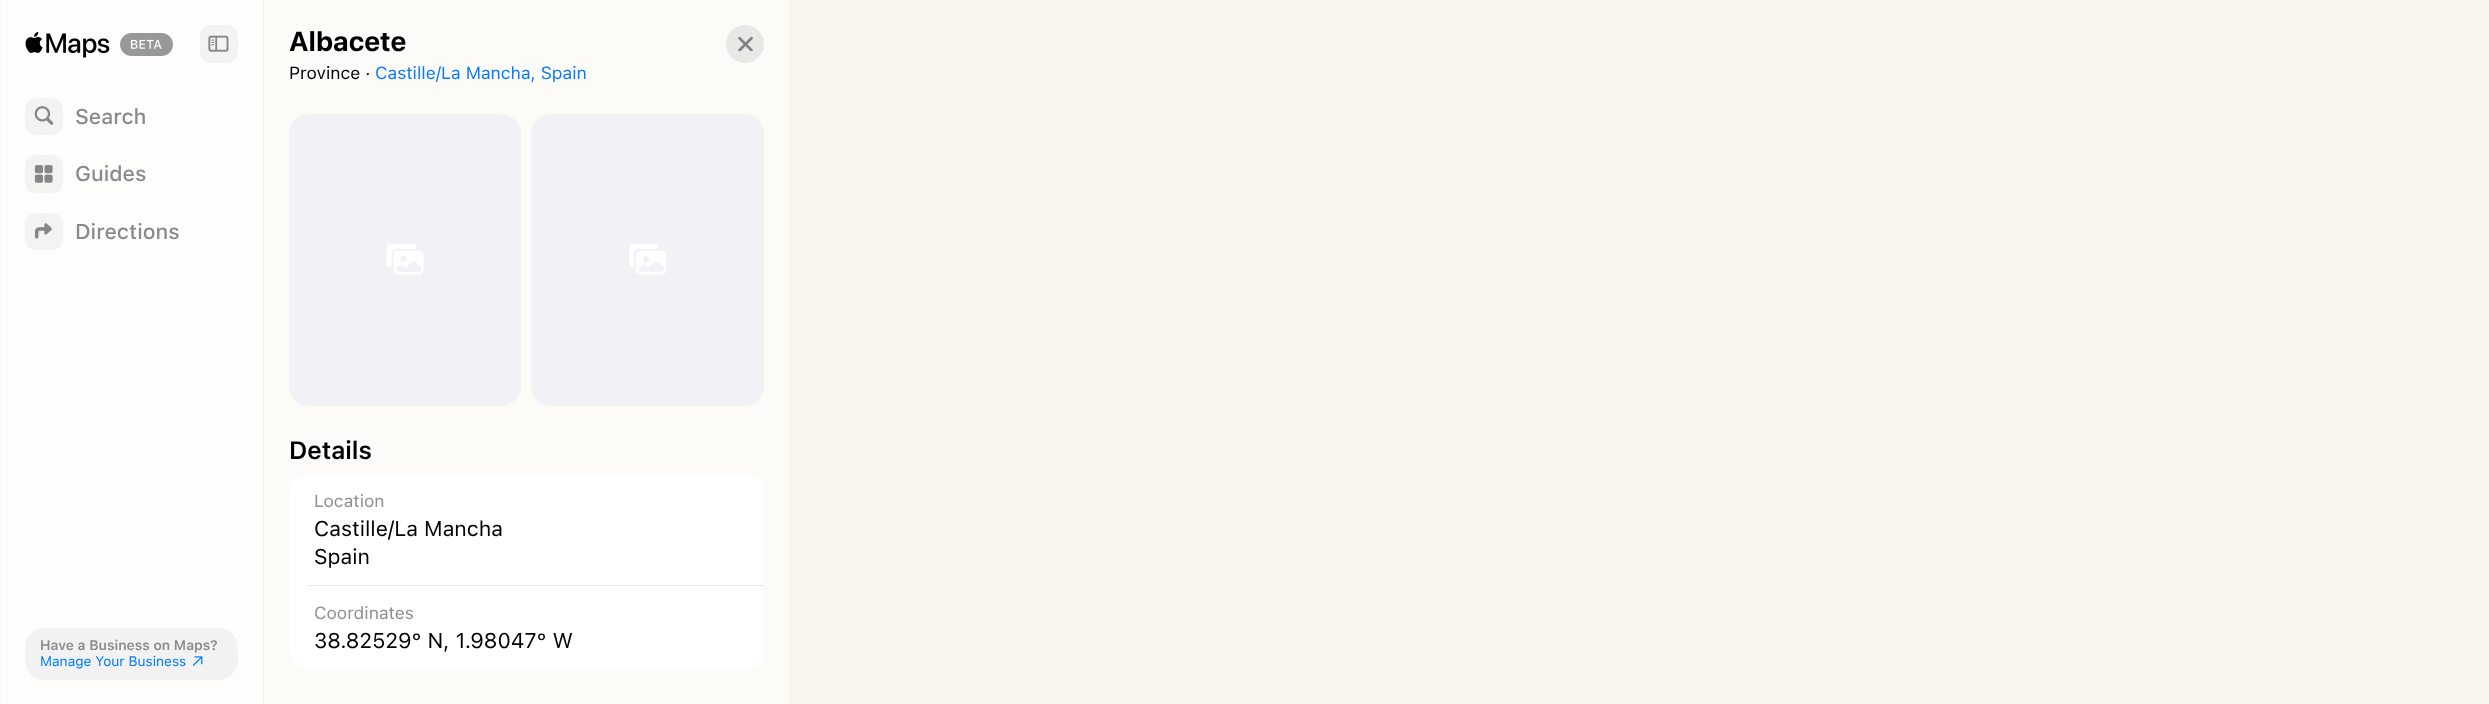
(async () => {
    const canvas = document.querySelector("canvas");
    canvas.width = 2489;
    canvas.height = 704;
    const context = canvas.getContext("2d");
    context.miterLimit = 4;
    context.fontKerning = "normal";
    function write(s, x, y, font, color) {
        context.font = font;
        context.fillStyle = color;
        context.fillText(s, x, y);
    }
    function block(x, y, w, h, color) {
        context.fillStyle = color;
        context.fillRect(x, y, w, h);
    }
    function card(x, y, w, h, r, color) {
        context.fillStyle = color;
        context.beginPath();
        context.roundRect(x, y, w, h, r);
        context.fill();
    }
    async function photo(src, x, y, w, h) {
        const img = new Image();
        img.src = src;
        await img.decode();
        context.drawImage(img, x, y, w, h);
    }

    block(0, 0, 2489, 704, "rgb(249, 249, 249)");
    block(789, 0, 1700, 704, "rgb(249, 245, 237)");
    block(1, 0, 262, 704, "rgb(254, 253, 251)");
    block(263, 0, 1, 704, "rgb(238, 237, 237)");
    await photo("media/1.png", 25, 32, 85, 26);
    await photo("media/2.png", 120, 33, 53, 23);
    card(200, 25, 38, 38, 11, "rgb(244, 243, 241)");
    await photo("media/3.png", 208, 35, 21, 17);
    card(25, 98, 38, 37, 11, "rgb(244, 243, 241)");
    await photo("media/4.png", 34, 106, 20, 19);
    write("Search", 75, 124, "500 21.25px SF", "rgb(138, 137, 141)");
    card(25, 155, 38, 38, 11, "rgb(244, 243, 241)");
    await photo("media/5.png", 34, 165, 19, 18);
    write("Guides", 75, 181, "500 21.25px SF", "rgb(138, 137, 141)");
    card(25, 213, 38, 37, 11, "rgb(244, 243, 241)");
    await photo("media/6.png", 35, 223, 17, 16);
    write("Directions", 75, 239, "500 21.25px SF", "rgb(138, 137, 141)");
    card(25, 628, 213, 52, 20, "rgb(243, 242, 242)");
    write("Have a Business on Maps?", 40, 650, "600 13.75px 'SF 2'", "rgb(138, 137, 141)");
    write("Manage Your Business", 40, 666, "13.75px SF", "rgb(0, 122, 255)");
    await photo("media/7.png", 193, 656, 10, 10);
    block(264, 0, 525, 704, "rgb(252, 251, 248)");
    write("Albacete", 289, 51, "bold 27.5px SF", "rgb(0, 0, 0)");
    write("Province ·", 289, 79, "17.5px SF", "rgb(0, 0, 0)");
    write("Castille/La Mancha, Spain", 375, 79, "17.5px SF", "rgb(10, 123, 255)");
    card(289, 114, 232, 292, 20, "rgb(242, 242, 246)");
    await photo("media/8.png", 386, 244, 38, 31);
    card(531, 114, 233, 292, 20, "rgb(242, 242, 246)");
    await photo("media/9.png", 629, 244, 37, 31);
    write("Details", 289, 459, "600 25px SF", "rgb(0, 0, 0)");
    card(289, 474, 475, 196, 20, "rgb(255, 255, 255)");
    write("Location", 314, 507, "17.5px SF", "rgb(142, 142, 147)");
    write("Castille/La Mancha", 314, 536, "21.25px SF", "rgb(0, 0, 0)");
    write("Spain", 314, 564, "21.25px SF", "rgb(0, 0, 0)");
    block(309, 585, 455, 1, "rgb(230, 230, 230)");
    write("Coordinates", 314, 619, "17.5px SF", "rgb(142, 142, 147)");
    write("38.82529° N, 1.98047° W", 314, 648, "21.25px SF", "rgb(0, 0, 0)");
    context.fillStyle = "rgb(233, 232, 230)";
    context.beginPath();
    context.arc(745, 44, 19, 0, Math.PI * 2);
    context.fill();
    await photo("media/10.png", 738, 36, 15, 15);
})();
